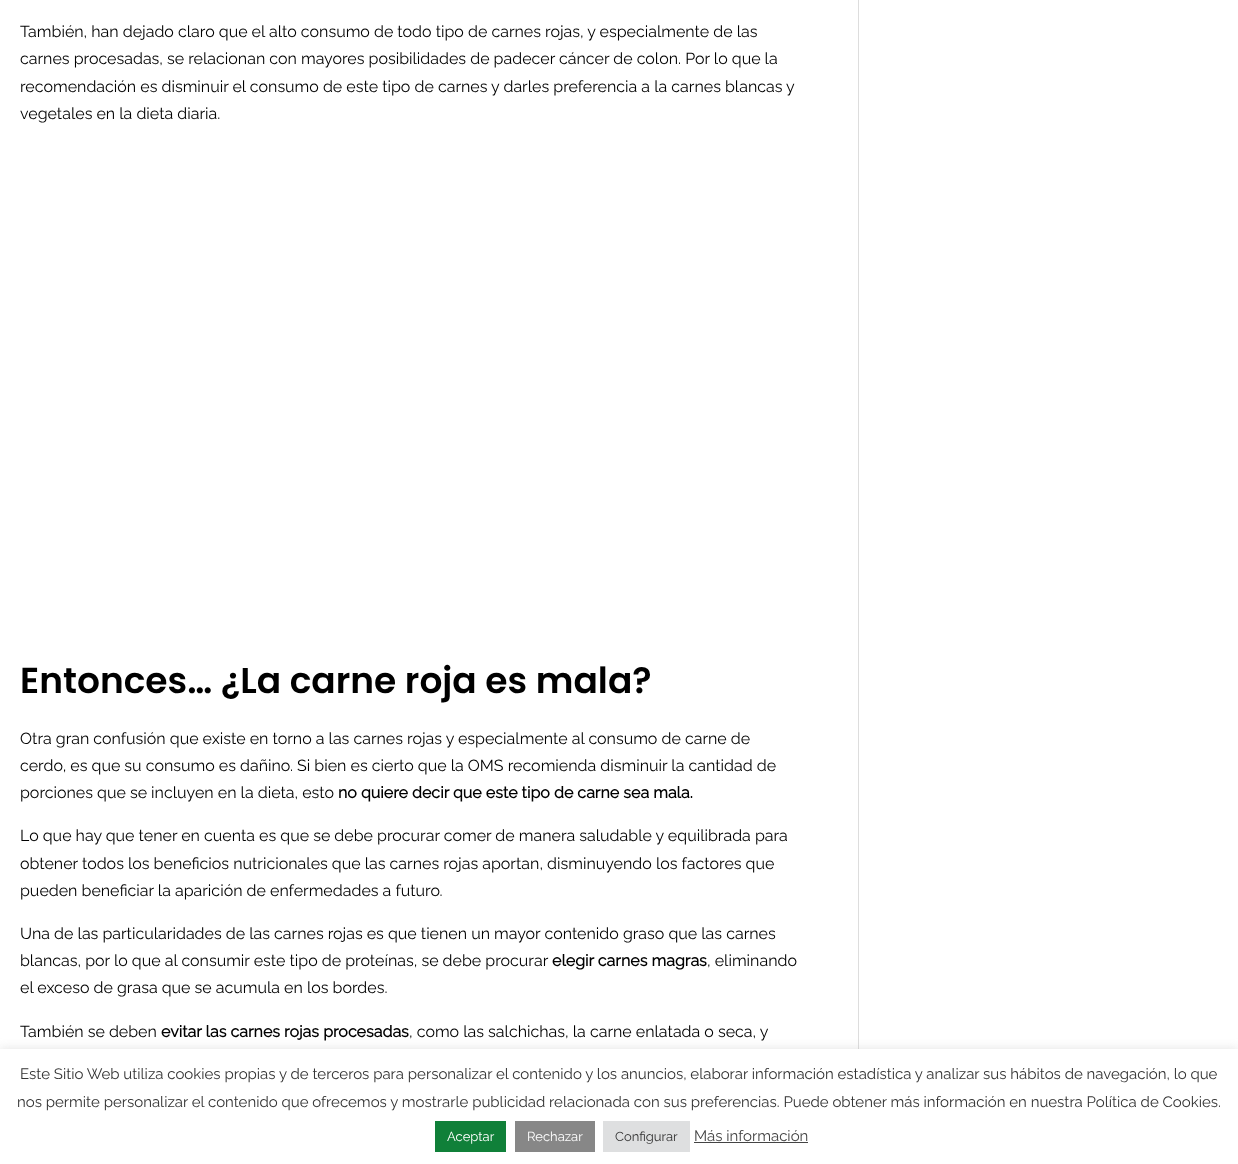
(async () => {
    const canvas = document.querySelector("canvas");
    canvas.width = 1238;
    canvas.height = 1164;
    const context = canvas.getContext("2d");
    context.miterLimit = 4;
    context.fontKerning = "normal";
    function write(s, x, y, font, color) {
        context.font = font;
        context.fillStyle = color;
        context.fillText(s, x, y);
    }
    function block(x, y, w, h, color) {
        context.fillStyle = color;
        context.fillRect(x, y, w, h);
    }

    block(0, 0, 1238, 1164, "rgb(255, 255, 255)");
    block(858, 0, 1, 1049, "rgb(221, 221, 221)");
    write("También, han dejado claro que el alto consumo de todo tipo de carnes rojas, y especialmente de las", 20, 37, "100 16px Raleway", "rgb(0, 0, 0)");
    write("carnes procesadas, se relacionan con mayores posibilidades de padecer cáncer de colon. Por lo que la", 20, 64, "100 16px Raleway", "rgb(0, 0, 0)");
    write("recomendación es disminuir el consumo de este tipo de carnes y darles preferencia a la carnes blancas y", 20, 92, "100 16px Raleway", "rgb(0, 0, 0)");
    write("vegetales en la dieta diaria.", 20, 119, "100 16px Raleway", "rgb(0, 0, 0)");
    write("Entonces… ¿La carne roja es mala?", 20, 693, "600 36px Poppins", "rgb(0, 0, 0)");
    write("Otra gran confusión que existe en torno a las carnes rojas y especialmente al consumo de carne de", 20, 744, "100 16px Raleway", "rgb(0, 0, 0)");
    write("cerdo, es que su consumo es dañino. Si bien es cierto que la OMS recomienda disminuir la cantidad de", 20, 771, "100 16px Raleway", "rgb(0, 0, 0)");
    write("porciones que se incluyen en la dieta, esto", 20, 798, "100 16px Raleway", "rgb(0, 0, 0)");
    write("no quiere decir que este tipo de carne sea mala.", 338, 798, "bold 16px Raleway", "rgb(0, 0, 0)");
    write("Lo que hay que tener en cuenta es que se debe procurar comer de manera saludable y equilibrada para", 20, 841, "100 16px Raleway", "rgb(0, 0, 0)");
    write("obtener todos los beneficios nutricionales que las carnes rojas aportan, disminuyendo los factores que", 20, 869, "100 16px Raleway", "rgb(0, 0, 0)");
    write("pueden beneficiar la aparición de enfermedades a futuro.", 20, 896, "100 16px Raleway", "rgb(0, 0, 0)");
    write("Una de las particularidades de las carnes rojas es que tienen un mayor contenido graso que las carnes", 20, 939, "100 16px Raleway", "rgb(0, 0, 0)");
    write("blancas, por lo que al consumir este tipo de proteínas, se debe procurar", 20, 966, "100 16px Raleway", "rgb(0, 0, 0)");
    write("elegir carnes magras", 552, 966, "bold 16px Raleway", "rgb(0, 0, 0)");
    write(", eliminando", 707, 966, "100 16px Raleway", "rgb(0, 0, 0)");
    write("el exceso de grasa que se acumula en los bordes.", 20, 993, "100 16px Raleway", "rgb(0, 0, 0)");
    write("También se deben", 20, 1037, "100 16px Raleway", "rgb(0, 0, 0)");
    write("evitar las carnes rojas procesadas", 161, 1037, "bold 16px Raleway", "rgb(0, 0, 0)");
    write(", como las salchichas, la carne enlatada o seca, y", 409, 1037, "100 16px Raleway", "rgb(0, 0, 0)");
    context.fillStyle = "rgba(172, 171, 171, 0.3)";
    context.filter = "blur(5px)";
    context.beginPath();
    context.rect(0, 1048, 1238, 115);
    context.fill();
    context.filter = "none";
    block(0, 1049, 1238, 115, "rgb(255, 255, 255)");
    write("Este Sitio Web utiliza cookies propias y de terceros para personalizar el contenido y los anuncios, elaborar información estadística y analizar sus hábitos de navegación, lo que", 20, 1079, "100 15px Raleway", "rgb(51, 51, 51)");
    write("nos permite personalizar el contenido que ofrecemos y mostrarle publicidad relacionada con sus preferencias. Puede obtener más información en nuestra Política de Cookies.", 17, 1107, "100 15px Raleway", "rgb(51, 51, 51)");
    block(435, 1121, 71, 31, "rgb(16, 128, 57)");
    write("Aceptar", 447, 1141, "100 13px Raleway", "rgb(255, 255, 255)");
    block(515, 1121, 80, 31, "rgb(135, 135, 135)");
    write("Rechazar", 527, 1141, "100 13px Raleway", "rgb(255, 255, 255)");
    block(603, 1121, 87, 31, "rgb(222, 223, 224)");
    write("Configurar", 615, 1141, "100 13px Raleway", "rgb(51, 51, 51)");
    write("Más información", 694, 1141, "100 15px Raleway", "rgb(68, 68, 68)");
    block(694, 1142, 114, 1, "rgb(68, 68, 68)");
})();
